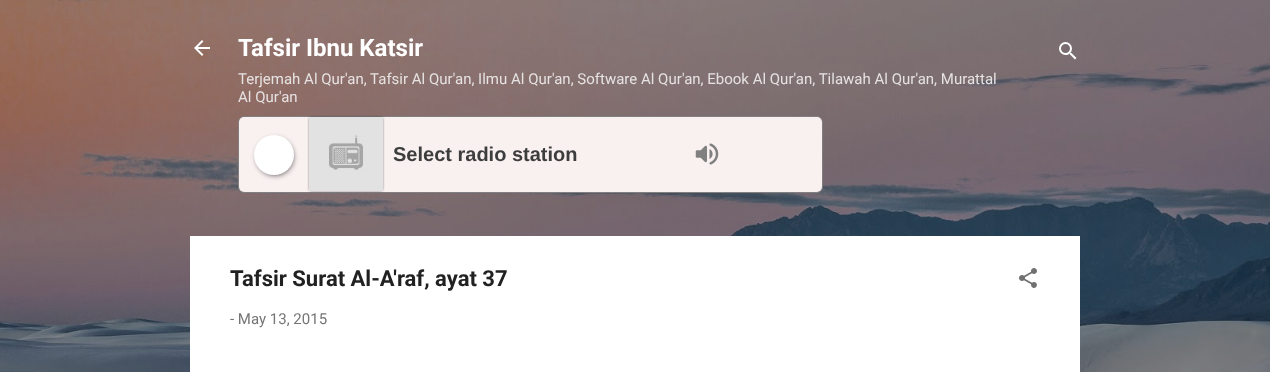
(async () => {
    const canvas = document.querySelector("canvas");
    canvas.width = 1270;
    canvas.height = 372;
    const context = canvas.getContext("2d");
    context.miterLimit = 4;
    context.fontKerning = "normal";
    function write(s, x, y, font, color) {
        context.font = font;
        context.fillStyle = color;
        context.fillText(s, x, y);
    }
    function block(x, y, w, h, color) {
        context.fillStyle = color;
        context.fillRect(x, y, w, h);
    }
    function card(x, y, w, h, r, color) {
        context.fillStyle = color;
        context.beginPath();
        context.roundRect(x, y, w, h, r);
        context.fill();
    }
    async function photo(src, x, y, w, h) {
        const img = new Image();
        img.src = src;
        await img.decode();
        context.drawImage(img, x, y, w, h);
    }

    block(0, 0, 1270, 372, "rgb(255, 255, 255)");
    await photo("media/1.png", 0, 0, 1270, 372);
    await photo("media/2.png", 194, 40, 16, 16);
    write("Tafsir Ibnu Katsir", 238, 56, "bold 24px Roboto", "rgb(255, 255, 255)");
    write("Terjemah Al Qur'an, Tafsir Al Qur'an, Ilmu Al Qur'an, Software Al Qur'an, Ebook Al Qur'an, Tilawah Al Qur'an, Murattal", 238, 84, "15px Roboto", "rgb(230, 226, 226)");
    write("Al Qur'an", 238, 102, "15px Roboto", "rgb(230, 226, 226)");
    context.beginPath();
    context.roundRect(238.5, 116.5, 584, 76, 5.5);
    context.strokeStyle = "rgb(129, 127, 128)";
    context.stroke();
    card(239, 117, 583, 75, 5, "rgb(249, 240, 240)");
    context.fillStyle = "rgb(0, 0, 0)";
    context.filter = "blur(3px)";
    context.beginPath();
    context.roundRect(258, 140, 34, 34, 17);
    context.fill();
    context.filter = "none";
    context.fillStyle = "rgb(255, 255, 255)";
    context.beginPath();
    context.arc(274, 155, 20, 0, Math.PI * 2);
    context.fill();
    context.fillStyle = "rgb(0, 0, 0)";
    context.filter = "blur(1.5px)";
    context.beginPath();
    context.rect(310, 118, 72, 72);
    context.fill();
    context.filter = "none";
    await photo("media/3.png", 309, 117, 74, 74);
    write("Select radio station", 393, 161, "bold 20px Liberation Sans", "rgb(61, 61, 61)");
    await photo("media/4.png", 695, 143, 24, 22);
    await photo("media/5.png", 1059, 42, 18, 18);
    block(190, 236, 890, 136, "rgb(255, 255, 255)");
    write("Tafsir Surat Al-A'raf, ayat 37", 230, 286, "bold 22px Roboto", "rgb(33, 33, 33)");
    await photo("media/6.png", 1019, 268, 18, 20);
    write("- May 13, 2015", 230, 324, "15px Roboto", "rgb(117, 117, 117)");
})();
